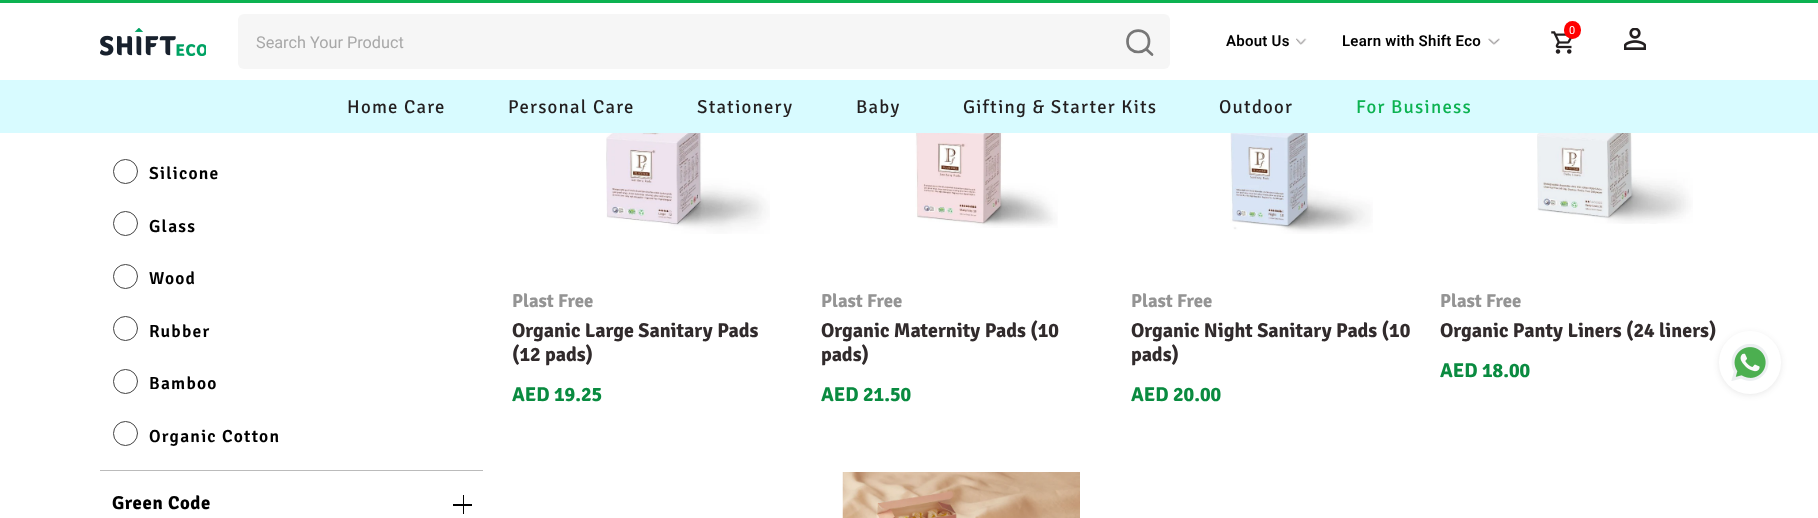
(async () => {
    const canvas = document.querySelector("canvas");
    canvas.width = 1818;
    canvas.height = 518;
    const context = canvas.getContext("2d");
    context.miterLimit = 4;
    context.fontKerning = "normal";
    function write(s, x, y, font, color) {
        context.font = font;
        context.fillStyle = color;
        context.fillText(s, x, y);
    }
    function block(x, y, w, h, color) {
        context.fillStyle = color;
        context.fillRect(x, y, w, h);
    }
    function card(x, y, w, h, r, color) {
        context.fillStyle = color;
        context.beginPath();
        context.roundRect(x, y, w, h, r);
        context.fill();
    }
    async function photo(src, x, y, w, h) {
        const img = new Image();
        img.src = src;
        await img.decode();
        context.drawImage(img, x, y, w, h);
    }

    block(0, 0, 1818, 518, "rgb(255, 255, 255)");
    block(0, 0, 1818, 3, "rgb(12, 178, 81)");
    await photo("media/1.png", 100, 28, 106, 28);
    card(238, 14, 932, 55, 6, "rgb(246, 246, 246)");
    write("Search Your Product", 256, 48, "16.25px Roboto", "rgb(168, 168, 168)");
    context.beginPath();
    context.moveTo(1149, 41.5);
    context.bezierCurveTo(1149, 55.5, 1127.5, 55.5, 1127.5, 41.5);
    context.bezierCurveTo(1127.5, 27, 1149, 27, 1149, 41.5);
    context.closePath();
    context.moveTo(1152, 54.5);
    context.lineTo(1146, 49);
    context.strokeStyle = "rgb(119, 119, 119)";
    context.lineWidth = 2.7;
    context.lineCap = "round";
    context.lineJoin = "round";
    context.stroke();
    context.letterSpacing = "0.25px";
    write("About Us", 1226, 46, "600 15px Roboto", "rgb(0, 0, 0)");
    await photo("media/2.png", 1296, 38, 11, 7);
    write("Learn with Shift Eco", 1342, 46, "600 15px Roboto", "rgb(0, 0, 0)");
    await photo("media/3.png", 1488, 38, 12, 7);
    await photo("media/4.png", 1551, 31, 21, 23);
    card(1564, 21, 17, 18, 8.5, "rgb(255, 0, 0)");
    context.letterSpacing = "0px";
    write("0", 1569, 34, "11px Roboto", "rgb(255, 255, 255)");
    await photo("media/5.png", 1624, 28, 22, 22);
    block(0, 80, 1818, 53, "rgb(216, 251, 255)");
    context.letterSpacing = "1.25px";
    write("Home Care", 347, 113, "18.75px Signika", "rgb(35, 31, 32)");
    write("Personal Care", 508, 113, "18.75px Signika", "rgb(35, 31, 32)");
    write("Stationery", 697, 113, "18.75px Signika", "rgb(35, 31, 32)");
    write("Baby", 856, 113, "18.75px Signika", "rgb(35, 31, 32)");
    write("Gifting & Starter Kits", 963, 113, "18.75px Signika", "rgb(35, 31, 32)");
    write("Outdoor", 1219, 113, "18.75px Signika", "rgb(35, 31, 32)");
    write("For Business", 1356, 113, "18.75px Signika", "rgb(12, 178, 81)");
    block(100, 470, 383, 1, "rgb(187, 187, 187)");
    context.beginPath();
    context.arc(125.5, 171.5, 12, 0, Math.PI * 2);
    context.strokeStyle = "rgb(67, 67, 67)";
    context.lineWidth = 1;
    context.stroke();
    write("Silicone", 149, 179, "600 17.5px Signika", "rgb(0, 0, 0)");
    context.beginPath();
    context.arc(125.5, 223.5, 12, 0, Math.PI * 2);
    context.stroke();
    write("Glass", 149, 232, "600 17.5px Signika", "rgb(0, 0, 0)");
    context.beginPath();
    context.arc(125.5, 276.5, 12, 0, Math.PI * 2);
    context.stroke();
    write("Wood", 149, 284, "600 17.5px Signika", "rgb(0, 0, 0)");
    context.beginPath();
    context.arc(125.5, 328.5, 12, 0, Math.PI * 2);
    context.stroke();
    write("Rubber", 149, 337, "600 17.5px Signika", "rgb(0, 0, 0)");
    context.beginPath();
    context.arc(125.5, 381.5, 12, 0, Math.PI * 2);
    context.stroke();
    write("Bamboo", 149, 389, "600 17.5px Signika", "rgb(0, 0, 0)");
    context.beginPath();
    context.arc(125.5, 433.5, 12, 0, Math.PI * 2);
    context.stroke();
    write("Organic Cotton", 149, 442, "600 17.5px Signika", "rgb(0, 0, 0)");
    context.letterSpacing = "0.6px";
    write("Green Code", 112, 509, "bold 18.75px Signika", "rgb(0, 0, 0)");
    block(463, 495, 1, 19, "rgb(0, 0, 0)");
    block(453, 504, 19, 2, "rgb(0, 0, 0)");
    await photo("media/6.png", 606, 133, 164, 101);
    context.letterSpacing = "0px";
    write("Plast Free", 512, 307, "bold 18.75px Signika", "rgb(148, 148, 148)");
    write("Organic Large Sanitary Pads", 512, 337, "bold 20px Signika", "rgb(49, 43, 44)");
    write("(12 pads)", 512, 361, "bold 20px Signika", "rgb(49, 43, 44)");
    write("AED 19.25", 512, 401, "bold 20px Signika", "rgb(10, 139, 64)");
    await photo("media/7.png", 915, 133, 143, 95);
    write("Plast Free", 821, 307, "bold 18.75px Signika", "rgb(148, 148, 148)");
    write("Organic Maternity Pads (10", 821, 337, "bold 20px Signika", "rgb(49, 43, 44)");
    write("pads)", 821, 361, "bold 20px Signika", "rgb(49, 43, 44)");
    write("AED 21.50", 821, 401, "bold 20px Signika", "rgb(10, 139, 64)");
    await photo("media/8.png", 1230, 133, 143, 101);
    write("Plast Free", 1131, 307, "bold 18.75px Signika", "rgb(148, 148, 148)");
    write("Organic Night Sanitary Pads (10", 1131, 337, "bold 20px Signika", "rgb(49, 43, 44)");
    write("pads)", 1131, 361, "bold 20px Signika", "rgb(49, 43, 44)");
    write("AED 20.00", 1131, 401, "bold 20px Signika", "rgb(10, 139, 64)");
    await photo("media/9.png", 1537, 133, 156, 91);
    write("Plast Free", 1440, 307, "bold 18.75px Signika", "rgb(148, 148, 148)");
    write("Organic Panty Liners (24 liners)", 1440, 337, "bold 20px Signika", "rgb(49, 43, 44)");
    write("AED 18.00", 1440, 377, "bold 20px Signika", "rgb(10, 139, 64)");
    await photo("media/10.png", 842, 472, 238, 46);
    context.fillStyle = "rgba(32, 33, 36, 0.11)";
    context.filter = "blur(3px)";
    context.beginPath();
    context.roundRect(1719, 333, 62, 62, 31);
    context.fill();
    context.filter = "none";
    card(1719, 331, 62, 63, 31, "rgb(255, 255, 255)");
    await photo("media/11.png", 1731, 344, 38, 37);
})();
